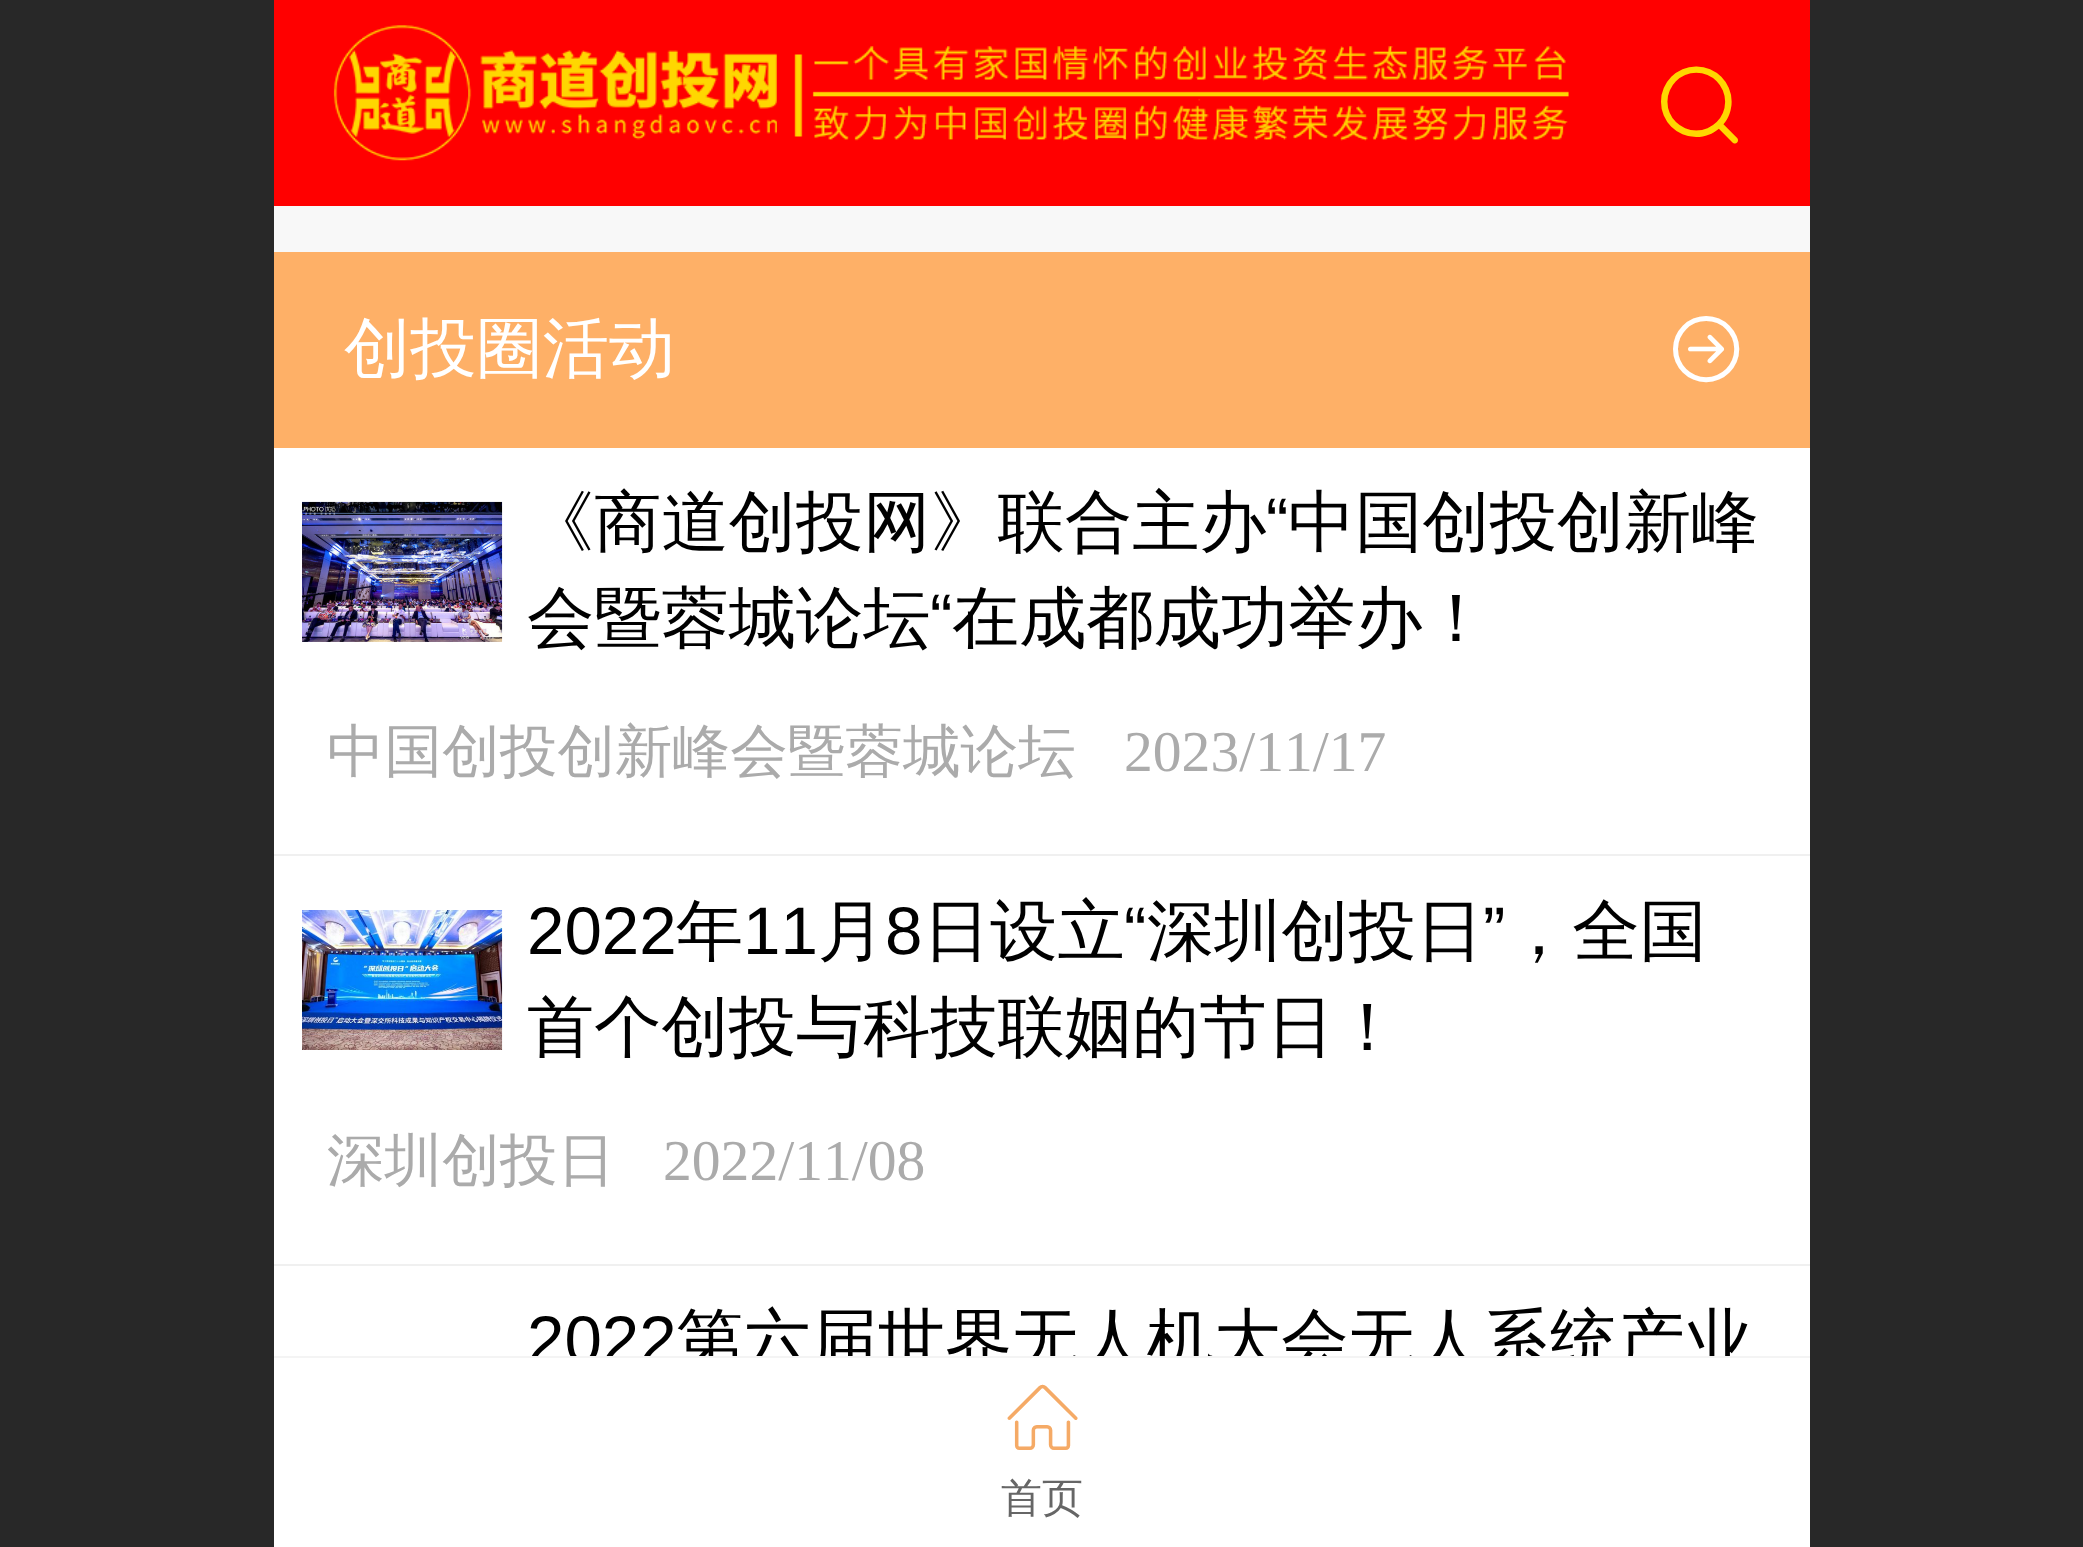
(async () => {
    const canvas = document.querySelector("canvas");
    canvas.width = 2083;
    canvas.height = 1547;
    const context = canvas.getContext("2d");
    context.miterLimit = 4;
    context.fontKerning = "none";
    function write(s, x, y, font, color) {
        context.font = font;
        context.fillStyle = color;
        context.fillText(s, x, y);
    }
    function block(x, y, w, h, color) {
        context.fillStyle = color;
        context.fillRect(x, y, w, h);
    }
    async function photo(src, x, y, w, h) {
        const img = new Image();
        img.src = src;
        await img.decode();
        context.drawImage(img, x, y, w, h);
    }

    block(0, 0, 2083, 1547, "rgb(248, 248, 248)");
    block(0, 0, 274, 1547, "rgb(40, 40, 40)");
    block(274, 0, 1536, 206, "rgb(255, 0, 0)");
    await photo("media/1.png", 333, 25, 1236, 136);
    write("򰊐", 1661, 137, "77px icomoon", "rgb(255, 215, 0)");
    block(274, 252, 1536, 196, "rgb(254, 176, 103)");
    write("创投圈活动", 344, 371, "500 66.25px WenQuanYi Zen Hei", "rgb(255, 255, 255)");
    write("򠈃", 1673, 378, "66.25px icomoon", "rgb(255, 255, 255)");
    block(274, 448, 1536, 908, "rgb(255, 255, 255)");
    await photo("media/2.png", 302, 501, 201, 141);
    write("《商道创投网》联合主办", 527, 545, "500 67.25px WenQuanYi Zen Hei", "rgb(0, 0, 0)");
    write("“", 1266, 545, "67.25px Liberation Sans", "rgb(0, 0, 0)");
    write("中国创投创新峰", 1288, 545, "500 67.25px WenQuanYi Zen Hei", "rgb(0, 0, 0)");
    write("会暨蓉城论坛", 527, 641, "500 67.25px WenQuanYi Zen Hei", "rgb(0, 0, 0)");
    write("“", 930, 641, "67.25px Liberation Sans", "rgb(0, 0, 0)");
    write("在成都成功举办！", 952, 641, "500 67.25px WenQuanYi Zen Hei", "rgb(0, 0, 0)");
    write("中国创投创新峰会暨蓉城论坛", 327, 771, "500 57.6px WenQuanYi Zen Hei", "rgb(171, 171, 171)");
    write("2023/11/17", 1124, 771, "57.6px Liberation Serif", "rgb(171, 171, 171)");
    block(274, 854, 1536, 2, "rgb(240, 240, 240)");
    await photo("media/3.png", 302, 910, 201, 140);
    write("2022", 527, 954, "67.25px Liberation Sans", "rgb(0, 0, 0)");
    write("年", 676, 954, "500 67.25px WenQuanYi Zen Hei", "rgb(0, 0, 0)");
    write("11", 743, 954, "67.25px Liberation Sans", "rgb(0, 0, 0)");
    write("月", 818, 954, "500 67.25px WenQuanYi Zen Hei", "rgb(0, 0, 0)");
    write("8", 885, 954, "67.25px Liberation Sans", "rgb(0, 0, 0)");
    write("日设立", 923, 954, "500 67.25px WenQuanYi Zen Hei", "rgb(0, 0, 0)");
    write("“", 1124, 954, "67.25px Liberation Sans", "rgb(0, 0, 0)");
    write("深圳创投日", 1147, 954, "500 67.25px WenQuanYi Zen Hei", "rgb(0, 0, 0)");
    write("”", 1483, 954, "67.25px Liberation Sans", "rgb(0, 0, 0)");
    write("，全国", 1505, 954, "500 67.25px WenQuanYi Zen Hei", "rgb(0, 0, 0)");
    write("首个创投与科技联姻的节日！", 527, 1050, "500 67.25px WenQuanYi Zen Hei", "rgb(0, 0, 0)");
    write("深圳创投日", 327, 1180, "500 57.6px WenQuanYi Zen Hei", "rgb(171, 171, 171)");
    write("2022/11/08", 663, 1180, "57.6px Liberation Serif", "rgb(171, 171, 171)");
    block(274, 1264, 1536, 2, "rgb(240, 240, 240)");
    write("2022", 527, 1363, "67.25px Liberation Sans", "rgb(0, 0, 0)");
    write("第六届世界无人机大会无人系统产业", 676, 1363, "500 67.25px WenQuanYi Zen Hei", "rgb(0, 0, 0)");
    block(274, 1358, 1536, 189, "rgb(255, 255, 255)");
    block(274, 1356, 1536, 2, "rgb(244, 244, 244)");
    write("򠡀", 1007, 1448, "70px icomoon", "rgb(245, 170, 102)");
    write("首页", 1001, 1512, "500 41px WenQuanYi Zen Hei", "rgb(102, 102, 102)");
    block(1810, 0, 273, 1547, "rgb(40, 40, 40)");
})();
